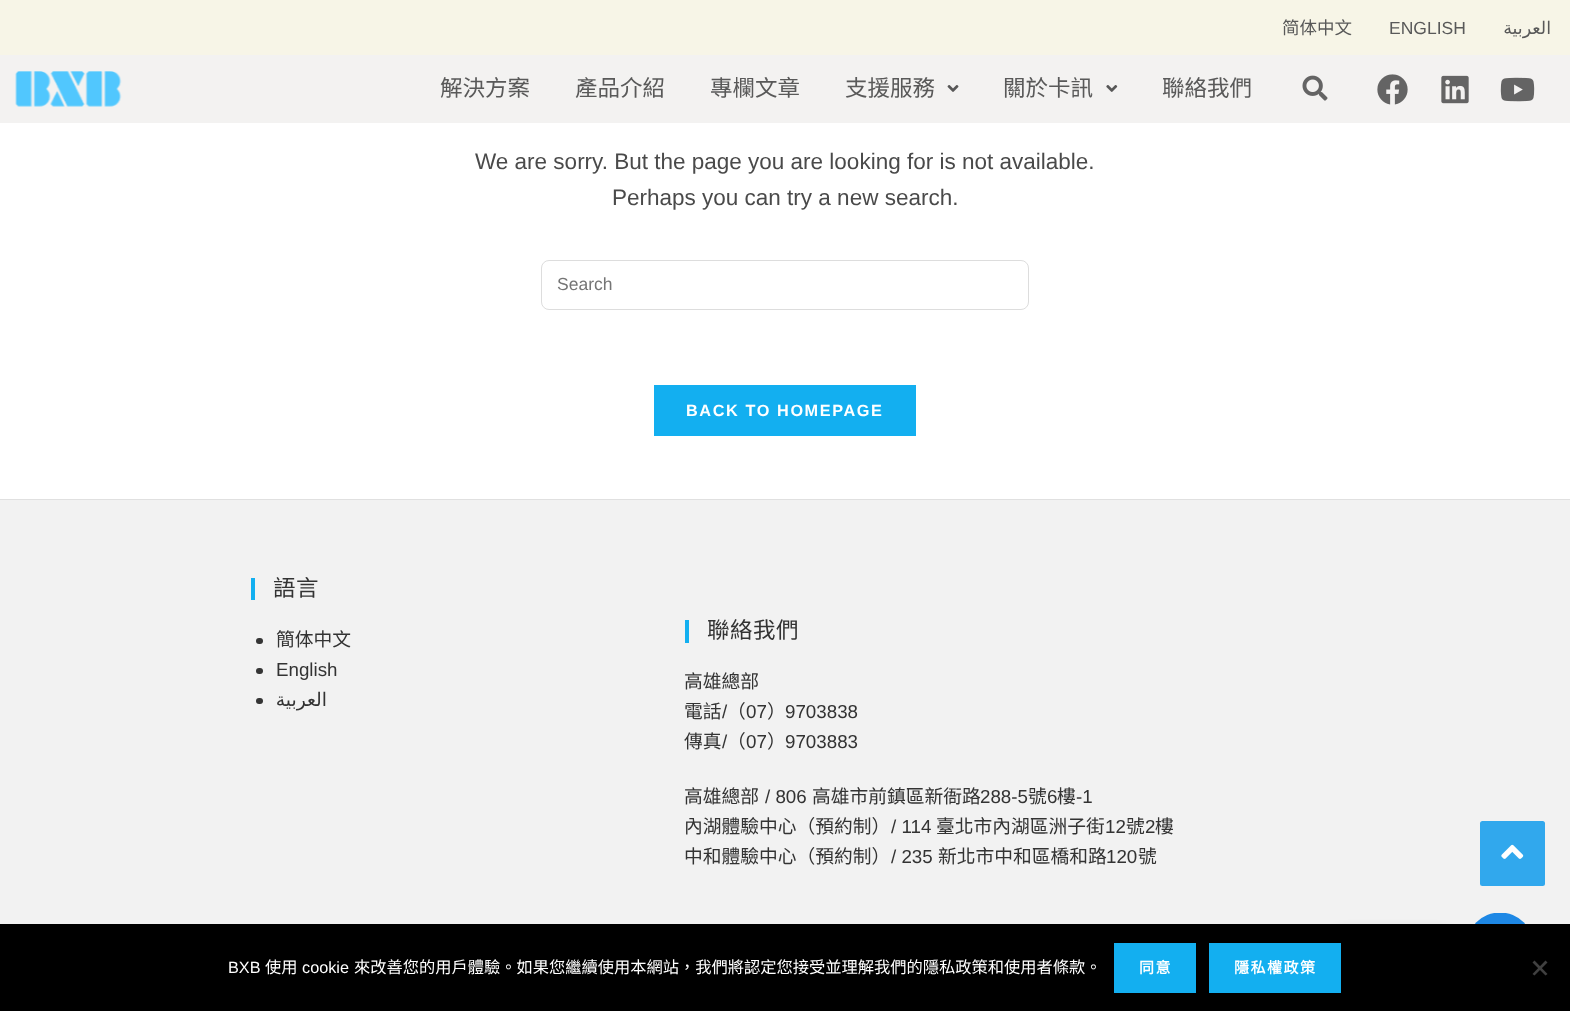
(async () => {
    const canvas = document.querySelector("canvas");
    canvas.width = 1570;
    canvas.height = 1011;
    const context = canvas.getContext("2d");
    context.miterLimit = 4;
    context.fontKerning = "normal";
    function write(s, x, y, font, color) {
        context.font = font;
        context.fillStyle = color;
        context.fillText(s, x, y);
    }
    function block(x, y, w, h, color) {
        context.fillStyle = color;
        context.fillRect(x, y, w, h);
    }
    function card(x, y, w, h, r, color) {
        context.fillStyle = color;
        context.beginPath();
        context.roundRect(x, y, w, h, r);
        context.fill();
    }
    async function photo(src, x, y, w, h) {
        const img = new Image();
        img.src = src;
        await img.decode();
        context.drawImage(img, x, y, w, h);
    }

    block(0, 0, 1570, 1011, "rgb(255, 255, 255)");
    block(0, 0, 1570, 55, "rgb(247, 245, 231)");
    write("简体中文", 1282, 34, "17.5px Noto Sans CJK TC", "rgb(89, 89, 89)");
    write("ENGLISH", 1389, 34, "17.5px Liberation Sans", "rgb(89, 89, 89)");
    context.direction = "rtl";
    write("العربية", 1551, 34, "17.5px DejaVu Sans", "rgb(89, 89, 89)");
    block(0, 55, 1570, 68, "rgb(243, 242, 241)");
    await photo("media/1.png", 15, 71, 107, 36);
    context.direction = "ltr";
    write("解決方案", 440, 96, "22.5px Noto Sans CJK TC", "rgb(89, 89, 89)");
    write("產品介紹", 575, 96, "22.5px Noto Sans CJK TC", "rgb(89, 89, 89)");
    write("專欄文章", 710, 96, "22.5px Noto Sans CJK TC", "rgb(89, 89, 89)");
    write("支援服務", 845, 96, "22.5px Noto Sans CJK TC", "rgb(89, 89, 89)");
    await photo("media/2.png", 947, 85, 12, 7);
    write("關於卡訊", 1003, 96, "22.5px Noto Sans CJK TC", "rgb(89, 89, 89)");
    await photo("media/3.png", 1106, 85, 12, 7);
    write("聯絡我們", 1162, 96, "22.5px Noto Sans CJK TC", "rgb(89, 89, 89)");
    await photo("media/4.png", 1302, 75, 26, 26);
    await photo("media/5.png", 1377, 74, 31, 31);
    await photo("media/6.png", 1441, 75, 28, 29);
    await photo("media/7.png", 1500, 77, 35, 25);
    write("We are sorry. But the page you are looking for is not available.", 475, 169, "22.5px Liberation Sans", "rgb(74, 74, 74)");
    write("Perhaps you can try a new search.", 612, 205, "22.5px Liberation Sans", "rgb(74, 74, 74)");
    context.beginPath();
    context.roundRect(541.5, 260.5, 487, 49, 7.5);
    context.strokeStyle = "rgb(221, 221, 221)";
    context.stroke();
    write("Search", 557, 290, "17.5px Liberation Sans", "rgb(117, 117, 117)");
    block(654, 385, 262, 51, "rgb(19, 175, 240)");
    context.letterSpacing = "1.6px";
    write("BACK TO HOMEPAGE", 686, 416, "bold 16.25px Liberation Sans", "rgb(255, 255, 255)");
    block(0, 500, 1570, 424, "rgb(242, 242, 242)");
    block(0, 499, 1570, 1, "rgb(224, 224, 224)");
    block(251, 578, 4, 22, "rgb(19, 175, 240)");
    context.letterSpacing = "0.5px";
    write("語言", 273, 596, "22.5px Noto Sans CJK TC", "rgb(51, 51, 51)");
    card(256, 638, 7, 6, 3, "rgb(53, 53, 53)");
    context.letterSpacing = "0px";
    write("簡体中文", 276, 646, "18.75px Noto Sans CJK TC", "rgb(51, 51, 51)");
    card(256, 668, 7, 6, 3, "rgb(53, 53, 53)");
    write("English", 276, 676, "18.75px Liberation Sans", "rgb(51, 51, 51)");
    card(256, 698, 7, 6, 3, "rgb(53, 53, 53)");
    context.direction = "rtl";
    write("العربية", 327, 706, "18.75px DejaVu Sans", "rgb(51, 51, 51)");
    block(685, 620, 4, 23, "rgb(19, 175, 240)");
    context.letterSpacing = "0.5px";
    context.direction = "ltr";
    write("聯絡我們", 707, 638, "22.5px Noto Sans CJK TC", "rgb(51, 51, 51)");
    context.letterSpacing = "0px";
    write("高雄總部", 684, 688, "18.75px Noto Sans CJK TC", "rgb(51, 51, 51)");
    write("電話", 684, 718, "18.75px Noto Sans CJK TC", "rgb(51, 51, 51)");
    write("/", 722, 718, "18.75px Liberation Sans", "rgb(51, 51, 51)");
    write("（", 727, 718, "18.75px Noto Sans CJK TC", "rgb(51, 51, 51)");
    write("07", 746, 718, "18.75px Liberation Sans", "rgb(51, 51, 51)");
    write("）", 767, 718, "18.75px Noto Sans CJK TC", "rgb(51, 51, 51)");
    write("9703838", 785, 718, "18.75px Liberation Sans", "rgb(51, 51, 51)");
    write("傳真", 684, 748, "18.75px Noto Sans CJK TC", "rgb(51, 51, 51)");
    write("/", 722, 748, "18.75px Liberation Sans", "rgb(51, 51, 51)");
    write("（", 727, 748, "18.75px Noto Sans CJK TC", "rgb(51, 51, 51)");
    write("07", 746, 748, "18.75px Liberation Sans", "rgb(51, 51, 51)");
    write("）", 767, 748, "18.75px Noto Sans CJK TC", "rgb(51, 51, 51)");
    write("9703883", 785, 748, "18.75px Liberation Sans", "rgb(51, 51, 51)");
    write("高雄總部", 684, 803, "18.75px Noto Sans CJK TC", "rgb(51, 51, 51)");
    write("/ 806", 765, 803, "18.75px Liberation Sans", "rgb(51, 51, 51)");
    write("高雄市前鎮區新衙路", 812, 803, "18.75px Noto Sans CJK TC", "rgb(51, 51, 51)");
    write("288-5", 980, 803, "18.75px Liberation Sans", "rgb(51, 51, 51)");
    write("號", 1028, 803, "18.75px Noto Sans CJK TC", "rgb(51, 51, 51)");
    write("6", 1047, 803, "18.75px Liberation Sans", "rgb(51, 51, 51)");
    write("樓", 1057, 803, "18.75px Noto Sans CJK TC", "rgb(51, 51, 51)");
    write("-1", 1076, 803, "18.75px Liberation Sans", "rgb(51, 51, 51)");
    write("內湖體驗中心（預約制）", 684, 833, "18.75px Noto Sans CJK TC", "rgb(51, 51, 51)");
    write("/ 114", 891, 833, "18.75px Liberation Sans", "rgb(51, 51, 51)");
    write("臺北市內湖區洲子街", 936, 833, "18.75px Noto Sans CJK TC", "rgb(51, 51, 51)");
    write("12", 1105, 833, "18.75px Liberation Sans", "rgb(51, 51, 51)");
    write("號", 1126, 833, "18.75px Noto Sans CJK TC", "rgb(51, 51, 51)");
    write("2", 1145, 833, "18.75px Liberation Sans", "rgb(51, 51, 51)");
    write("樓", 1155, 833, "18.75px Noto Sans CJK TC", "rgb(51, 51, 51)");
    write("中和體驗中心（預約制）", 684, 863, "18.75px Noto Sans CJK TC", "rgb(51, 51, 51)");
    write("/ 235", 891, 863, "18.75px Liberation Sans", "rgb(51, 51, 51)");
    write("新北市中和區橋和路", 938, 863, "18.75px Noto Sans CJK TC", "rgb(51, 51, 51)");
    write("120", 1106, 863, "18.75px Liberation Sans", "rgb(51, 51, 51)");
    write("號", 1138, 863, "18.75px Noto Sans CJK TC", "rgb(51, 51, 51)");
    card(1480, 821, 65, 65, 2.5, "rgb(49, 168, 237)");
    await photo("media/8.png", 1501, 844, 23, 15);
    context.save();
    context.beginPath();
    context.rect(1466, 913, 68, 67);
    context.clip();
    context.fillStyle = "rgb(30, 136, 229)";
    context.beginPath();
    context.arc(1500, 946, 33.5, 0, Math.PI * 2);
    context.fill();
    context.restore();
    context.fillStyle = "rgba(0, 0, 0, 0.15)";
    context.filter = "blur(5px)";
    context.beginPath();
    context.roundRect(1331, 929, 123, 39, 13);
    context.fill();
    context.filter = "none";
    block(0, 924, 1570, 87, "rgb(0, 0, 0)");
    write("BXB", 228, 973, "16.25px Liberation Sans", "rgb(255, 255, 255)");
    write("使用", 265, 973, "16.25px Noto Sans CJK TC", "rgb(255, 255, 255)");
    write("cookie", 302, 973, "16.25px Liberation Sans", "rgb(255, 255, 255)");
    write("來改善您的用戶體驗。如果您繼續使用本網站，我們將認定您接受並理解我們的隱私政策和使用者條款。", 354, 973, "16.25px Noto Sans CJK TC", "rgb(255, 255, 255)");
    block(1114, 943, 82, 50, "rgb(19, 175, 240)");
    context.letterSpacing = "1.5px";
    write("同意", 1139, 973, "bold 15px Noto Sans CJK TC", "rgb(255, 255, 255)");
    block(1209, 943, 132, 50, "rgb(19, 175, 240)");
    write("隱私權政策", 1234, 973, "bold 15px Noto Sans CJK TC", "rgb(255, 255, 255)");
    context.fillStyle = "rgb(64, 64, 64)";
    context.beginPath();
    context.moveTo(1545.5, 960.5);
    context.lineTo(1547.5, 962.5);
    context.lineTo(1534.5, 975.5);
    context.lineTo(1532.5, 974);
    context.closePath();
    context.fill();
    context.beginPath();
    context.moveTo(1532.5, 962.5);
    context.lineTo(1534.5, 960.5);
    context.lineTo(1547.5, 974);
    context.lineTo(1545.5, 975.5);
    context.closePath();
    context.fill();
})();
